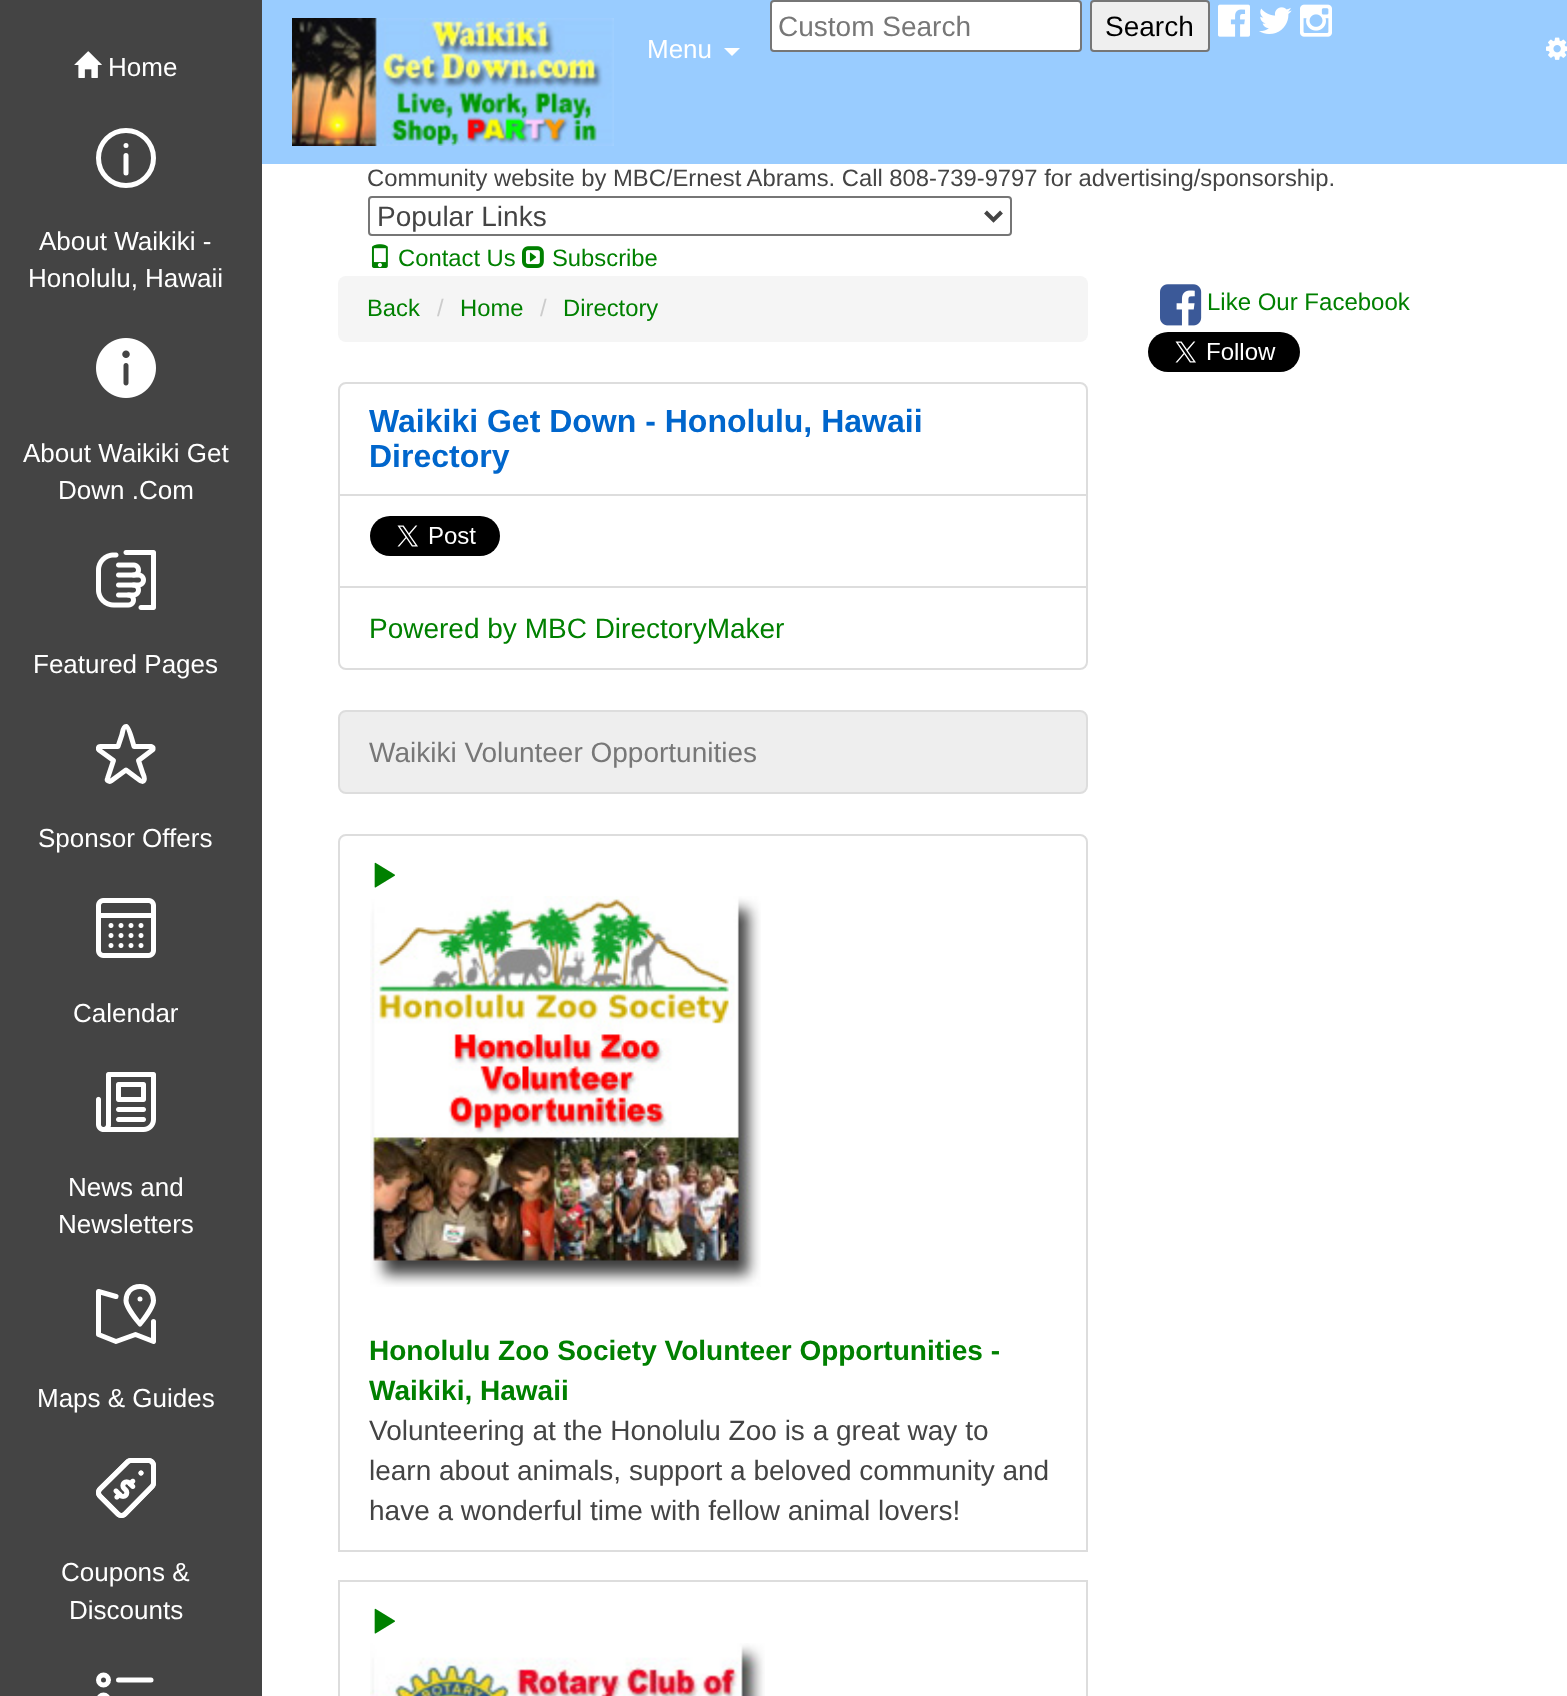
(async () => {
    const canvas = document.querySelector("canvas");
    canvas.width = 1567;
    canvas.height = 1696;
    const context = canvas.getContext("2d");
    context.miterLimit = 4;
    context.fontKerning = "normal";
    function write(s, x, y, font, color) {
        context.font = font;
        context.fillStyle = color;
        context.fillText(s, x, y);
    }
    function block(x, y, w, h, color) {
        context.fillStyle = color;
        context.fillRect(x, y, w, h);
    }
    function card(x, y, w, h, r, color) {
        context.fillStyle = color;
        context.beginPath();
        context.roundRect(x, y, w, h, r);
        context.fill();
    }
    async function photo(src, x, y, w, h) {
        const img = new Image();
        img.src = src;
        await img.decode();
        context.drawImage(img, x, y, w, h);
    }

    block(0, 0, 1567, 1696, "rgb(68, 68, 68)");
    await photo("media/1.png", 74, 51, 28, 27);
    write("Home", 108, 76, "26px Liberation Sans", "rgb(255, 255, 255)");
    context.beginPath();
    context.arc(126, 158, 27.5, 0, Math.PI * 2);
    context.strokeStyle = "rgb(255, 255, 255)";
    context.lineWidth = 5;
    context.stroke();
    context.beginPath();
    context.moveTo(126, 155.5);
    context.lineTo(126, 173);
    context.moveTo(126, 145.5);
    context.lineTo(126, 145.5);
    context.lineCap = "round";
    context.lineJoin = "round";
    context.stroke();
    write("About Waikiki -", 39, 250, "26px Liberation Sans", "rgb(255, 255, 255)");
    write("Honolulu, Hawaii", 28, 287, "26px Liberation Sans", "rgb(255, 255, 255)");
    await photo("media/2.png", 96, 338, 60, 60);
    write("About Waikiki Get", 23, 462, "26px Liberation Sans", "rgb(255, 255, 255)");
    write("Down .Com", 58, 499, "26px Liberation Sans", "rgb(255, 255, 255)");
    await photo("media/3.png", 96, 550, 60, 60);
    write("Featured Pages", 33, 673, "26px Liberation Sans", "rgb(255, 255, 255)");
    context.beginPath();
    context.moveTo(151.5, 746.5);
    context.lineTo(134, 746.5);
    context.bezierCurveTo(133, 743.5, 129, 727, 126.5, 726.5);
    context.bezierCurveTo(123, 726, 122.5, 732.5, 122, 734.5);
    context.lineTo(118, 746.5);
    context.lineTo(100.5, 746.5);
    context.bezierCurveTo(98, 746.5, 98, 749, 99, 750);
    context.lineTo(113.5, 760.5);
    context.lineTo(107.5, 778.5);
    context.bezierCurveTo(107, 779.5, 107.5, 780.5, 108.5, 781);
    context.bezierCurveTo(109, 781.5, 110.5, 781.5, 111, 781);
    context.lineTo(126, 770);
    context.lineTo(136, 777.5);
    context.bezierCurveTo(137, 778, 141.5, 783, 143.5, 781);
    context.bezierCurveTo(146, 779, 143, 774.5, 142.5, 772.5);
    context.lineTo(138.5, 760.5);
    context.lineTo(153, 749.5);
    context.lineTo(153, 747.5);
    context.closePath();
    context.stroke();
    write("Sponsor Offers", 38, 847, "26px Liberation Sans", "rgb(255, 255, 255)");
    await photo("media/4.png", 96, 898, 60, 60);
    write("Calendar", 73, 1022, "26px Liberation Sans", "rgb(255, 255, 255)");
    await photo("media/5.png", 96, 1072, 60, 60);
    write("News and", 68, 1196, "26px Liberation Sans", "rgb(255, 255, 255)");
    write("Newsletters", 58, 1233, "26px Liberation Sans", "rgb(255, 255, 255)");
    context.beginPath();
    context.moveTo(116, 1296.5);
    context.lineTo(98.5, 1291.5);
    context.lineTo(98.5, 1334.5);
    context.lineTo(116, 1341.5);
    context.lineTo(135.5, 1334.5);
    context.lineTo(153.5, 1341.5);
    context.lineTo(153.5, 1321.5);
    context.moveTo(140, 1324);
    context.bezierCurveTo(140, 1324, 153.5, 1307.5, 153.5, 1300.5);
    context.bezierCurveTo(153.5, 1293.5, 149, 1286.5, 140, 1286.5);
    context.bezierCurveTo(130.5, 1286.5, 126, 1293.5, 126, 1300.5);
    context.bezierCurveTo(126, 1307.5, 140, 1324, 140, 1324);
    context.moveTo(140, 1299);
    context.lineTo(140, 1299);
    context.stroke();
    write("Maps & Guides", 37, 1407, "26px Liberation Sans", "rgb(255, 255, 255)");
    await photo("media/6.png", 96, 1458, 60, 60);
    write("Coupons &", 61, 1581, "26px Liberation Sans", "rgb(255, 255, 255)");
    write("Discounts", 69, 1619, "26px Liberation Sans", "rgb(255, 255, 255)");
    context.beginPath();
    context.moveTo(118.5, 1680);
    context.lineTo(151, 1680);
    context.stroke();
    context.beginPath();
    context.arc(103.5, 1700, 5, 0, Math.PI * 2);
    context.stroke();
    context.beginPath();
    context.arc(103.5, 1680, 5, 0, Math.PI * 2);
    context.stroke();
    block(262, 164, 1305, 1532, "rgb(255, 255, 255)");
    block(262, 0, 1305, 164, "rgb(153, 204, 255)");
    await photo("media/7.png", 292, 18, 322, 128);
    context.fillStyle = "rgb(255, 255, 255)";
    context.beginPath();
    context.roundRect(771, 1, 310, 50, 3);
    context.fill();
    context.strokeStyle = "rgb(118, 118, 118)";
    context.lineWidth = 2;
    context.lineJoin = "miter";
    context.stroke();
    write("Custom Search", 778, 36, "28px Liberation Sans", "rgb(119, 119, 119)");
    context.fillStyle = "rgb(239, 239, 239)";
    context.beginPath();
    context.roundRect(1091, 1, 118, 50, 3);
    context.fill();
    context.stroke();
    write("Search", 1105, 36, "28px Liberation Sans", "rgb(0, 0, 0)");
    await photo("media/8.png", 1218, 4, 32, 33);
    await photo("media/9.png", 1259, 7, 33, 27);
    await photo("media/10.png", 1300, 4, 32, 33);
    write("Menu", 647, 58, "26px Liberation Sans", "rgb(255, 255, 255)");
    context.beginPath();
    context.moveTo(724, 48);
    context.lineTo(740, 48);
    context.lineTo(732, 56);
    context.closePath();
    context.fill();
    await photo("media/11.png", 1546, 37, 21, 23);
    write("Community website by MBC/Ernest Abrams. Call 808-739-9797 for advertising/sponsorship.", 367, 186, "23.8px Liberation Sans", "rgb(68, 68, 68)");
    context.beginPath();
    context.roundRect(369, 197, 642, 38, 3);
    context.stroke();
    context.beginPath();
    context.moveTo(985.5, 212);
    context.lineTo(993.5, 220);
    context.lineTo(1001.5, 212);
    context.strokeStyle = "rgb(68, 68, 68)";
    context.lineWidth = 4;
    context.lineCap = "butt";
    context.stroke();
    write("Popular Links", 377, 226, "28px Liberation Sans", "rgb(68, 68, 68)");
    await photo("media/12.png", 371, 244, 17, 24);
    write("Contact Us", 398, 266, "23.8px Liberation Sans", "rgb(0, 128, 0)");
    await photo("media/13.png", 522, 246, 22, 22);
    write("Subscribe", 552, 266, "23.8px Liberation Sans", "rgb(0, 128, 0)");
    card(338, 276, 750, 66, 8, "rgb(245, 245, 245)");
    write("Back", 367, 316, "23.8px Liberation Sans", "rgb(0, 128, 0)");
    write("/", 437, 316, "23.8px Liberation Sans", "rgb(204, 204, 204)");
    write("Home", 460, 316, "23.8px Liberation Sans", "rgb(0, 128, 0)");
    write("/", 540, 316, "23.8px Liberation Sans", "rgb(204, 204, 204)");
    write("Directory", 563, 316, "23.8px Liberation Sans", "rgb(0, 128, 0)");
    context.beginPath();
    context.roundRect(339, 383, 748, 112, [7, 7, 0, 0]);
    context.strokeStyle = "rgb(221, 221, 221)";
    context.lineWidth = 2;
    context.stroke();
    write("Waikiki Get Down - Honolulu, Hawaii", 369, 432, "bold 32px Liberation Sans", "rgb(0, 102, 204)");
    write("Directory", 369, 467, "bold 32px Liberation Sans", "rgb(0, 102, 204)");
    context.strokeRect(339, 495, 748, 92);
    await photo("media/14.png", 370, 516, 130, 40);
    context.fillStyle = "rgb(255, 255, 255)";
    context.beginPath();
    context.roundRect(339, 587, 748, 82, [0, 0, 7, 7]);
    context.fill();
    context.stroke();
    write("Powered by MBC DirectoryMaker", 369, 638, "28px Liberation Sans", "rgb(0, 128, 0)");
    context.fillStyle = "rgb(238, 238, 238)";
    context.beginPath();
    context.roundRect(339, 711, 748, 82, 7);
    context.fill();
    context.stroke();
    write("Waikiki Volunteer Opportunities", 369, 762, "28px Liberation Sans", "rgb(119, 119, 119)");
    context.beginPath();
    context.roundRect(339, 835, 748, 716, [7, 7, 0, 0]);
    context.stroke();
    await photo("media/15.png", 374, 862, 21, 26);
    await photo("media/16.png", 370, 896, 391, 391);
    write("Honolulu Zoo Society Volunteer Opportunities -", 369, 1360, "bold 28px Liberation Sans", "rgb(0, 128, 0)");
    write("Waikiki, Hawaii", 369, 1400, "bold 28px Liberation Sans", "rgb(0, 128, 0)");
    write("Volunteering at the Honolulu Zoo is a great way to", 369, 1440, "28px Liberation Sans", "rgb(68, 68, 68)");
    write("learn about animals, support a beloved community and", 369, 1480, "28px Liberation Sans", "rgb(68, 68, 68)");
    write("have a wonderful time with fellow animal lovers!", 369, 1520, "28px Liberation Sans", "rgb(68, 68, 68)");
    context.strokeRect(339, 1581, 748, 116);
    await photo("media/15.png", 374, 1608, 21, 26);
    await photo("media/17.png", 370, 1643, 395, 53);
    await photo("media/18.png", 1160, 284, 42, 42);
    write("Like Our Facebook", 1207, 310, "24px Liberation Sans", "rgb(0, 128, 0)");
    await photo("media/19.png", 1148, 332, 152, 40);
})();
